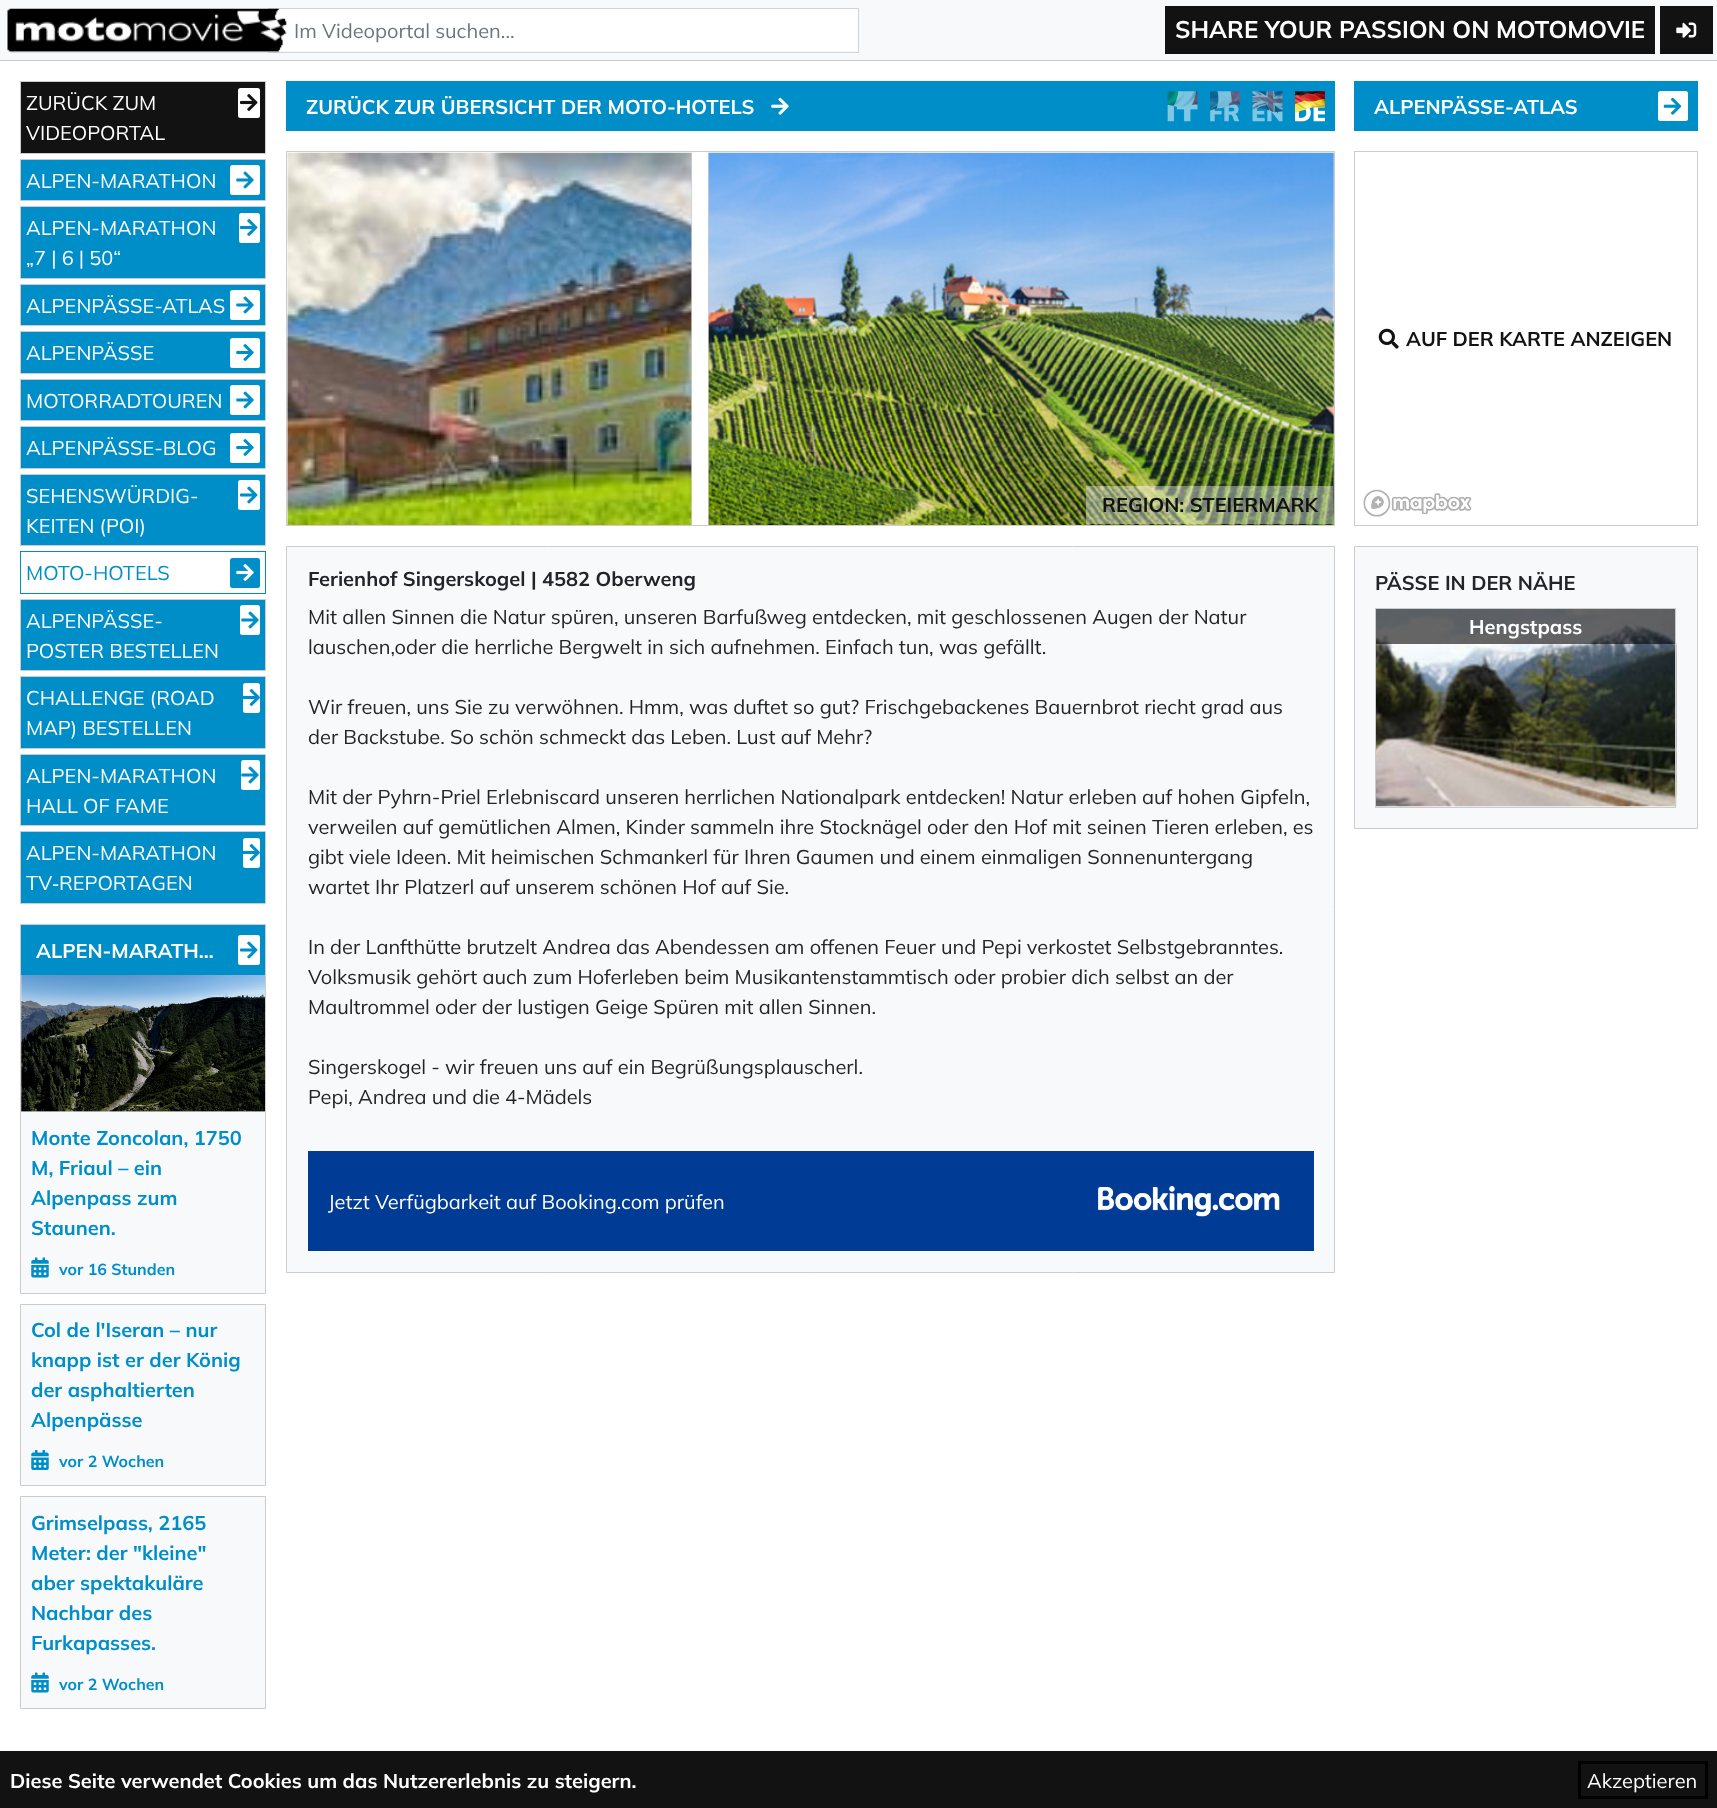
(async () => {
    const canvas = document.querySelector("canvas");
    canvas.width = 1717;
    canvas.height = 1808;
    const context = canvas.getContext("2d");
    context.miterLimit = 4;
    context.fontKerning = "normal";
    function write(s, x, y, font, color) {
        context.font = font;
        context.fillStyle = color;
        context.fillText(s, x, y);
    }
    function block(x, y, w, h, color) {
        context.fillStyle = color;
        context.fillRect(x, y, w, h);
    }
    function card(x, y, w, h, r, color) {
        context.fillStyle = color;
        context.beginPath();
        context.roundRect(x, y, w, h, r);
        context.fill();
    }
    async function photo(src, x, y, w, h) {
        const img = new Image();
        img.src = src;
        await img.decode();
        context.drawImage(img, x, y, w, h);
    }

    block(0, 0, 1717, 1808, "rgb(255, 255, 255)");
    block(0, 0, 1717, 60, "rgb(248, 249, 250)");
    block(0, 60, 1717, 1, "rgb(204, 204, 204)");
    block(274, 9, 584, 42, "rgb(255, 255, 255)");
    context.strokeStyle = "rgb(206, 212, 218)";
    context.strokeRect(268.5, 8.5, 590, 44);
    await photo("media/1.png", 7, 8, 280, 45);
    write("Im Videoportal suchen...", 294, 38, "200 20px Mulish", "rgb(108, 117, 125)");
    block(1165, 6, 490, 48, "rgb(18, 18, 18)");
    write("SHARE YOUR PASSION ON MOTOMOVIE", 1175, 38, "200 24px 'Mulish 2'", "rgb(255, 255, 255)");
    block(1660, 6, 53, 48, "rgb(18, 18, 18)");
    await photo("media/2.png", 1676, 22, 21, 16);
    context.beginPath();
    context.rect(20.5, 81.5, 245, 72);
    context.fill();
    context.strokeStyle = "rgb(204, 204, 204)";
    context.stroke();
    write("ZURÜCK ZUM", 26, 110, "200 20px Mulish", "rgb(255, 255, 255)");
    write("VIDEOPORTAL", 26, 140, "200 20px Mulish", "rgb(255, 255, 255)");
    card(238, 88, 22, 30, 2.5, "rgb(255, 255, 255)");
    await photo("media/3.png", 240, 94, 18, 17);
    context.fillStyle = "rgb(0, 142, 201)";
    context.beginPath();
    context.rect(20.5, 159.5, 245, 41);
    context.fill();
    context.stroke();
    write("ALPEN-MARATHON", 26, 188, "200 20px Mulish", "rgb(255, 255, 255)");
    card(230, 165, 30, 30, 2.5, "rgb(255, 255, 255)");
    await photo("media/4.png", 236, 171, 18, 18);
    context.fillStyle = "rgb(0, 142, 201)";
    context.beginPath();
    context.rect(20.5, 206.5, 245, 72);
    context.fill();
    context.stroke();
    write("ALPEN-MARATHON", 26, 235, "200 20px Mulish", "rgb(255, 255, 255)");
    write("„7 | 6 | 50“", 26, 265, "200 20px Mulish", "rgb(255, 255, 255)");
    card(239, 213, 21, 30, 2.5, "rgb(255, 255, 255)");
    await photo("media/5.png", 240, 219, 18, 17);
    context.fillStyle = "rgb(0, 142, 201)";
    context.beginPath();
    context.rect(20.5, 284.5, 245, 41);
    context.fill();
    context.stroke();
    write("ALPENPÄSSE-ATLAS", 26, 313, "200 20px Mulish", "rgb(255, 255, 255)");
    card(230, 290, 30, 30, 2.5, "rgb(255, 255, 255)");
    await photo("media/4.png", 236, 296, 18, 18);
    context.fillStyle = "rgb(0, 142, 201)";
    context.beginPath();
    context.rect(20.5, 331.5, 245, 42);
    context.fill();
    context.stroke();
    write("ALPENPÄSSE", 26, 360, "200 20px Mulish", "rgb(255, 255, 255)");
    card(230, 338, 30, 30, 2.5, "rgb(255, 255, 255)");
    await photo("media/6.png", 236, 344, 18, 17);
    context.fillStyle = "rgb(0, 142, 201)";
    context.beginPath();
    context.rect(20.5, 379.5, 245, 41);
    context.fill();
    context.stroke();
    write("MOTORRADTOUREN", 26, 408, "200 20px Mulish", "rgb(255, 255, 255)");
    card(230, 385, 30, 30, 2.5, "rgb(255, 255, 255)");
    await photo("media/4.png", 236, 391, 18, 18);
    context.fillStyle = "rgb(0, 142, 201)";
    context.beginPath();
    context.rect(20.5, 426.5, 245, 42);
    context.fill();
    context.stroke();
    write("ALPENPÄSSE-BLOG", 26, 455, "200 20px Mulish", "rgb(255, 255, 255)");
    card(230, 433, 30, 30, 2.5, "rgb(255, 255, 255)");
    await photo("media/6.png", 236, 439, 18, 17);
    context.fillStyle = "rgb(0, 142, 201)";
    context.beginPath();
    context.rect(20.5, 474.5, 245, 71);
    context.fill();
    context.stroke();
    write("SEHENSWÜRDIG-", 26, 503, "200 20px Mulish", "rgb(255, 255, 255)");
    write("KEITEN (POI)", 26, 533, "200 20px Mulish", "rgb(255, 255, 255)");
    card(238, 480, 22, 30, 2.5, "rgb(255, 255, 255)");
    await photo("media/7.png", 240, 486, 18, 18);
    context.strokeStyle = "rgb(0, 142, 201)";
    context.strokeRect(20.5, 551.5, 245, 42);
    write("MOTO-HOTELS", 26, 580, "200 20px Mulish", "rgb(0, 142, 201)");
    card(230, 558, 30, 30, 2.5, "rgb(0, 142, 201)");
    await photo("media/8.png", 236, 564, 18, 17);
    context.beginPath();
    context.rect(20.5, 599.5, 245, 71);
    context.fill();
    context.strokeStyle = "rgb(204, 204, 204)";
    context.stroke();
    write("ALPENPÄSSE-", 26, 628, "200 20px Mulish", "rgb(255, 255, 255)");
    write("POSTER BESTELLEN", 26, 658, "200 20px Mulish", "rgb(255, 255, 255)");
    card(240, 605, 20, 30, 2.5, "rgb(255, 255, 255)");
    await photo("media/4.png", 241, 611, 18, 18);
    context.fillStyle = "rgb(0, 142, 201)";
    context.beginPath();
    context.rect(20.5, 676.5, 245, 72);
    context.fill();
    context.stroke();
    write("CHALLENGE (ROAD", 26, 705, "200 20px Mulish", "rgb(255, 255, 255)");
    write("MAP) BESTELLEN", 26, 735, "200 20px Mulish", "rgb(255, 255, 255)");
    card(243, 683, 17, 30, 2.5, "rgb(255, 255, 255)");
    await photo("media/9.png", 243, 689, 17, 17);
    context.fillStyle = "rgb(0, 142, 201)";
    context.beginPath();
    context.rect(20.5, 754.5, 245, 71);
    context.fill();
    context.stroke();
    write("ALPEN-MARATHON", 26, 783, "200 20px Mulish", "rgb(255, 255, 255)");
    write("HALL OF FAME", 26, 813, "200 20px Mulish", "rgb(255, 255, 255)");
    card(241, 760, 19, 30, 2.5, "rgb(255, 255, 255)");
    await photo("media/4.png", 241, 766, 18, 18);
    context.fillStyle = "rgb(0, 142, 201)";
    context.beginPath();
    context.rect(20.5, 831.5, 245, 72);
    context.fill();
    context.stroke();
    write("ALPEN-MARATHON", 26, 860, "200 20px Mulish", "rgb(255, 255, 255)");
    write("TV‑REPORTAGEN", 26, 890, "200 20px Mulish", "rgb(255, 255, 255)");
    card(243, 838, 17, 30, 2.5, "rgb(255, 255, 255)");
    await photo("media/9.png", 243, 844, 17, 17);
    block(20, 924, 246, 1, "rgb(204, 204, 204)");
    block(265, 924, 1, 187, "rgb(204, 204, 204)");
    block(20, 924, 1, 187, "rgb(204, 204, 204)");
    block(21, 925, 244, 50, "rgb(0, 142, 201)");
    write("ALPEN-MARATH…", 36, 958, "200 20px 'Mulish 2'", "rgb(255, 255, 255)");
    card(238, 935, 22, 30, 2.5, "rgb(255, 255, 255)");
    await photo("media/7.png", 240, 941, 18, 18);
    context.fillStyle = "rgb(248, 249, 250)";
    context.beginPath();
    context.rect(20.5, 1111.5, 245, 182);
    context.fill();
    context.stroke();
    await photo("media/10.png", 21, 975, 244, 137);
    write("Monte Zoncolan, 1750", 31, 1145, "200 20px 'Mulish 2'", "rgb(0, 142, 201)");
    write("M, Friaul – ein", 31, 1175, "200 20px 'Mulish 2'", "rgb(0, 142, 201)");
    write("Alpenpass zum", 31, 1205, "200 20px 'Mulish 2'", "rgb(0, 142, 201)");
    write("Staunen.", 31, 1235, "200 20px 'Mulish 2'", "rgb(0, 142, 201)");
    await photo("media/11.png", 31, 1257, 18, 21);
    write("vor 16 Stunden", 59, 1275, "200 16px 'Mulish 2'", "rgb(0, 142, 201)");
    context.fillStyle = "rgb(248, 249, 250)";
    context.beginPath();
    context.rect(20.5, 1304.5, 245, 181);
    context.fill();
    context.stroke();
    write("Col de l'Iseran – nur", 31, 1337, "200 20px 'Mulish 2'", "rgb(0, 142, 201)");
    write("knapp ist er der König", 31, 1367, "200 20px 'Mulish 2'", "rgb(0, 142, 201)");
    write("der asphaltierten", 31, 1397, "200 20px 'Mulish 2'", "rgb(0, 142, 201)");
    write("Alpenpässe", 31, 1427, "200 20px 'Mulish 2'", "rgb(0, 142, 201)");
    await photo("media/12.png", 31, 1450, 18, 20);
    write("vor 2 Wochen", 59, 1467, "200 16px 'Mulish 2'", "rgb(0, 142, 201)");
    context.fillStyle = "rgb(248, 249, 250)";
    context.beginPath();
    context.rect(20.5, 1496.5, 245, 212);
    context.fill();
    context.stroke();
    write("Grimselpass, 2165", 31, 1530, "200 20px 'Mulish 2'", "rgb(0, 142, 201)");
    write("Meter: der \"kleine\"", 31, 1560, "200 20px 'Mulish 2'", "rgb(0, 142, 201)");
    write("aber spektakuläre", 31, 1590, "200 20px 'Mulish 2'", "rgb(0, 142, 201)");
    write("Nachbar des", 31, 1620, "200 20px 'Mulish 2'", "rgb(0, 142, 201)");
    write("Furkapasses.", 31, 1650, "200 20px 'Mulish 2'", "rgb(0, 142, 201)");
    await photo("media/11.png", 31, 1672, 18, 21);
    write("vor 2 Wochen", 59, 1690, "200 16px 'Mulish 2'", "rgb(0, 142, 201)");
    block(286, 81, 1049, 50, "rgb(0, 142, 201)");
    write("ZURÜCK ZUR ÜBERSICHT DER MOTO-HOTELS", 306, 114, "200 20px 'Mulish 2'", "rgb(255, 255, 255)");
    await photo("media/13.png", 771, 97, 18, 18);
    await photo("media/14.png", 1167, 91, 31, 31);
    await photo("media/15.png", 1210, 91, 30, 31);
    await photo("media/16.png", 1252, 91, 31, 31);
    await photo("media/17.png", 1295, 91, 30, 31);
    context.strokeRect(286.5, 151.5, 1048, 374);
    block(691, 153, 1, 372, "rgb(204, 204, 204)");
    await photo("media/18.png", 287, 152, 405, 373);
    block(708, 153, 1, 372, "rgb(204, 204, 204)");
    await photo("media/19.png", 708, 152, 626, 373);
    block(1086, 486, 247, 38, "rgba(255, 255, 255, 0.4)");
    write("REGION: STEIERMARK", 1102, 512, "200 20px 'Mulish 2'", "rgb(18, 18, 18)");
    block(1354, 81, 344, 50, "rgb(0, 142, 201)");
    write("ALPENPÄSSE-ATLAS", 1374, 114, "200 20px 'Mulish 2'", "rgb(255, 255, 255)");
    card(1658, 91, 30, 30, 2.5, "rgb(255, 255, 255)");
    await photo("media/20.png", 1663, 97, 19, 18);
    context.strokeRect(1354.5, 151.5, 343, 374);
    await photo("media/21.png", 1378, 328, 21, 21);
    write("AUF DER KARTE ANZEIGEN", 1406, 346, "200 20px 'Mulish 2'", "rgb(18, 18, 18)");
    await photo("media/22.png", 1363, 489, 109, 28);
    context.fillStyle = "rgb(248, 249, 250)";
    context.beginPath();
    context.rect(286.5, 546.5, 1048, 726);
    context.fill();
    context.stroke();
    write("Ferienhof Singerskogel | 4582 Oberweng", 308, 586, "200 20px 'Mulish 2'", "rgb(33, 37, 41)");
    write("Mit allen Sinnen die Natur spüren, unseren Barfußweg entdecken, mit geschlossenen Augen der Natur", 308, 624, "200 20px Mulish", "rgb(33, 37, 41)");
    write("lauschen,oder die herrliche Bergwelt in sich aufnehmen. Einfach tun, was gefällt.", 308, 654, "200 20px Mulish", "rgb(33, 37, 41)");
    write("Wir freuen, uns Sie zu verwöhnen. Hmm, was duftet so gut? Frischgebackenes Bauernbrot riecht grad aus", 308, 714, "200 20px Mulish", "rgb(33, 37, 41)");
    write("der Backstube. So schön schmeckt das Leben. Lust auf Mehr?", 308, 744, "200 20px Mulish", "rgb(33, 37, 41)");
    write("Mit der Pyhrn-Priel Erlebniscard unseren herrlichen Nationalpark entdecken! Natur erleben auf hohen Gipfeln,", 308, 804, "200 20px Mulish", "rgb(33, 37, 41)");
    write("verweilen auf gemütlichen Almen, Kinder sammeln ihre Stocknägel oder den Hof mit seinen Tieren erleben, es", 308, 834, "200 20px Mulish", "rgb(33, 37, 41)");
    write("gibt viele Ideen. Mit heimischen Schmankerl für Ihren Gaumen und einem einmaligen Sonnenuntergang", 308, 864, "200 20px Mulish", "rgb(33, 37, 41)");
    write("wartet Ihr Platzerl auf unserem schönen Hof auf Sie.", 308, 894, "200 20px Mulish", "rgb(33, 37, 41)");
    write("In der Lanfthütte brutzelt Andrea das Abendessen am offenen Feuer und Pepi verkostet Selbstgebranntes.", 308, 954, "200 20px Mulish", "rgb(33, 37, 41)");
    write("Volksmusik gehört auch zum Hoferleben beim Musikantenstammtisch oder probier dich selbst an der", 308, 984, "200 20px Mulish", "rgb(33, 37, 41)");
    write("Maultrommel oder der lustigen Geige Spüren mit allen Sinnen.", 308, 1014, "200 20px Mulish", "rgb(33, 37, 41)");
    write("Singerskogel - wir freuen uns auf ein Begrüßungsplauscherl.", 308, 1074, "200 20px Mulish", "rgb(33, 37, 41)");
    write("Pepi, Andrea und die 4-Mädels", 308, 1104, "200 20px Mulish", "rgb(33, 37, 41)");
    block(308, 1151, 1006, 100, "rgb(0, 59, 149)");
    write("Jetzt Verfügbarkeit auf Booking.com prüfen", 328, 1209, "200 20px Mulish", "rgb(255, 255, 255)");
    await photo("media/23.png", 1098, 1186, 182, 31);
    context.fillStyle = "rgb(248, 249, 250)";
    context.beginPath();
    context.rect(1354.5, 546.5, 343, 282);
    context.fill();
    context.stroke();
    write("PÄSSE IN DER NÄHE", 1375, 590, "200 20px 'Mulish 2'", "rgb(33, 37, 41)");
    await photo("media/24.png", 1376, 608, 301, 199);
    context.strokeRect(1375.5, 608.5, 300, 199);
    block(1376, 609, 299, 35, "rgba(0, 0, 0, 0.6)");
    write("Hengstpass", 1469, 634, "200 20px 'Mulish 2'", "rgb(255, 255, 255)");
    block(0, 1751, 1717, 57, "rgb(18, 18, 18)");
    block(0, 1750, 1717, 1, "rgb(250, 250, 250)");
    write("Diese Seite verwendet Cookies um das Nutzererlebnis zu steigern.", 10, 1788, "200 20px 'Mulish 2'", "rgb(255, 255, 255)");
    context.strokeStyle = "rgb(0, 0, 0)";
    context.lineWidth = 3;
    context.strokeRect(1579.5, 1762.5, 127, 35);
    write("Akzeptieren", 1587, 1788, "200 20px Mulish", "rgb(255, 255, 255)");
})();
